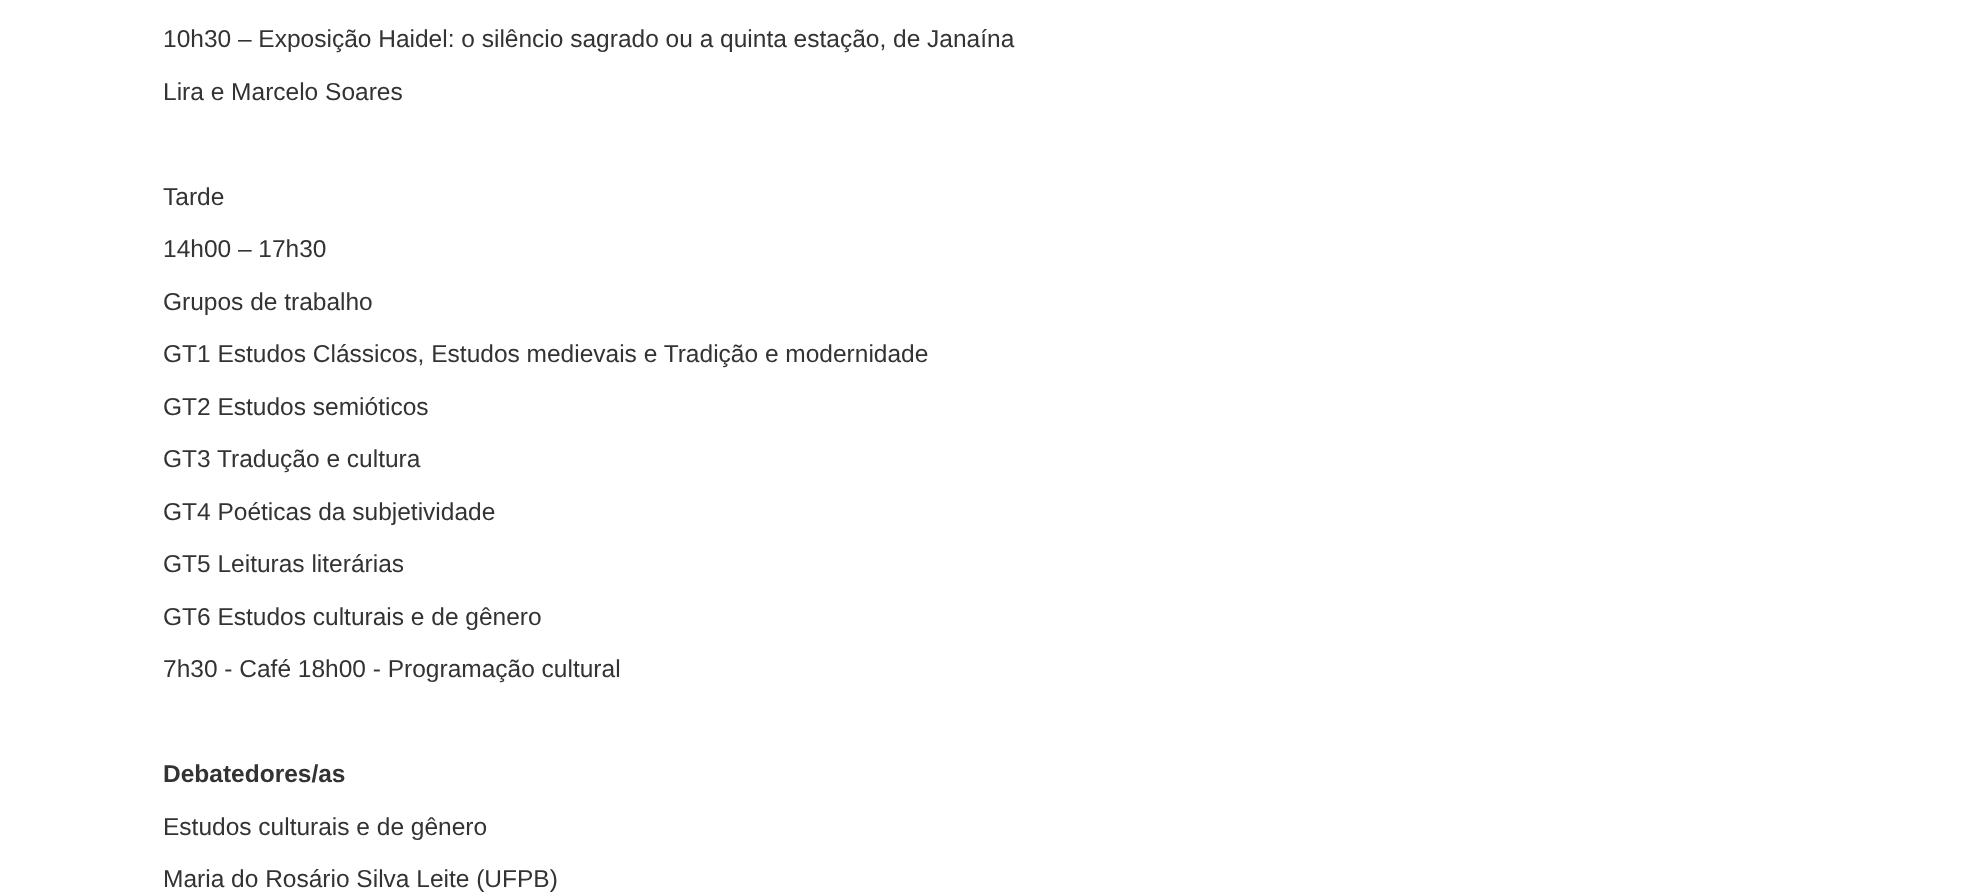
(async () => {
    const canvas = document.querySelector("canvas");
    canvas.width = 1970;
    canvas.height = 894;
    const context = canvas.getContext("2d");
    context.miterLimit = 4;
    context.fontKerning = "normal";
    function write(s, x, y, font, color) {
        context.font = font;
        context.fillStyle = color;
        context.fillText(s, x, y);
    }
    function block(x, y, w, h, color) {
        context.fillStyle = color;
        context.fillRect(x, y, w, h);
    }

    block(0, 0, 1970, 894, "rgb(255, 255, 255)");
    write("10h30 – Exposição Haidel: o silêncio sagrado ou a quinta estação, de Janaína", 163, 47, "24.5px Liberation Sans", "rgb(51, 51, 51)");
    write("Lira e Marcelo Soares", 163, 100, "24.5px Liberation Sans", "rgb(51, 51, 51)");
    write("Tarde", 163, 205, "24.5px Liberation Sans", "rgb(51, 51, 51)");
    write("14h00 – 17h30", 163, 257, "24.5px Liberation Sans", "rgb(51, 51, 51)");
    write("Grupos de trabalho", 163, 310, "24.5px Liberation Sans", "rgb(51, 51, 51)");
    write("GT1 Estudos Clássicos, Estudos medievais e Tradição e modernidade", 163, 362, "24.5px Liberation Sans", "rgb(51, 51, 51)");
    write("GT2 Estudos semióticos", 163, 415, "24.5px Liberation Sans", "rgb(51, 51, 51)");
    write("GT3 Tradução e cultura", 163, 467, "24.5px Liberation Sans", "rgb(51, 51, 51)");
    write("GT4 Poéticas da subjetividade", 163, 520, "24.5px Liberation Sans", "rgb(51, 51, 51)");
    write("GT5 Leituras literárias", 163, 572, "24.5px Liberation Sans", "rgb(51, 51, 51)");
    write("GT6 Estudos culturais e de gênero", 163, 625, "24.5px Liberation Sans", "rgb(51, 51, 51)");
    write("7h30 - Café 18h00 - Programação cultural", 163, 677, "24.5px Liberation Sans", "rgb(51, 51, 51)");
    write("Debatedores/as", 163, 782, "bold 24.5px Liberation Sans", "rgb(51, 51, 51)");
    write("Estudos culturais e de gênero", 163, 835, "24.5px Liberation Sans", "rgb(51, 51, 51)");
    write("Maria do Rosário Silva Leite (UFPB)", 163, 887, "24.5px Liberation Sans", "rgb(51, 51, 51)");
})();
